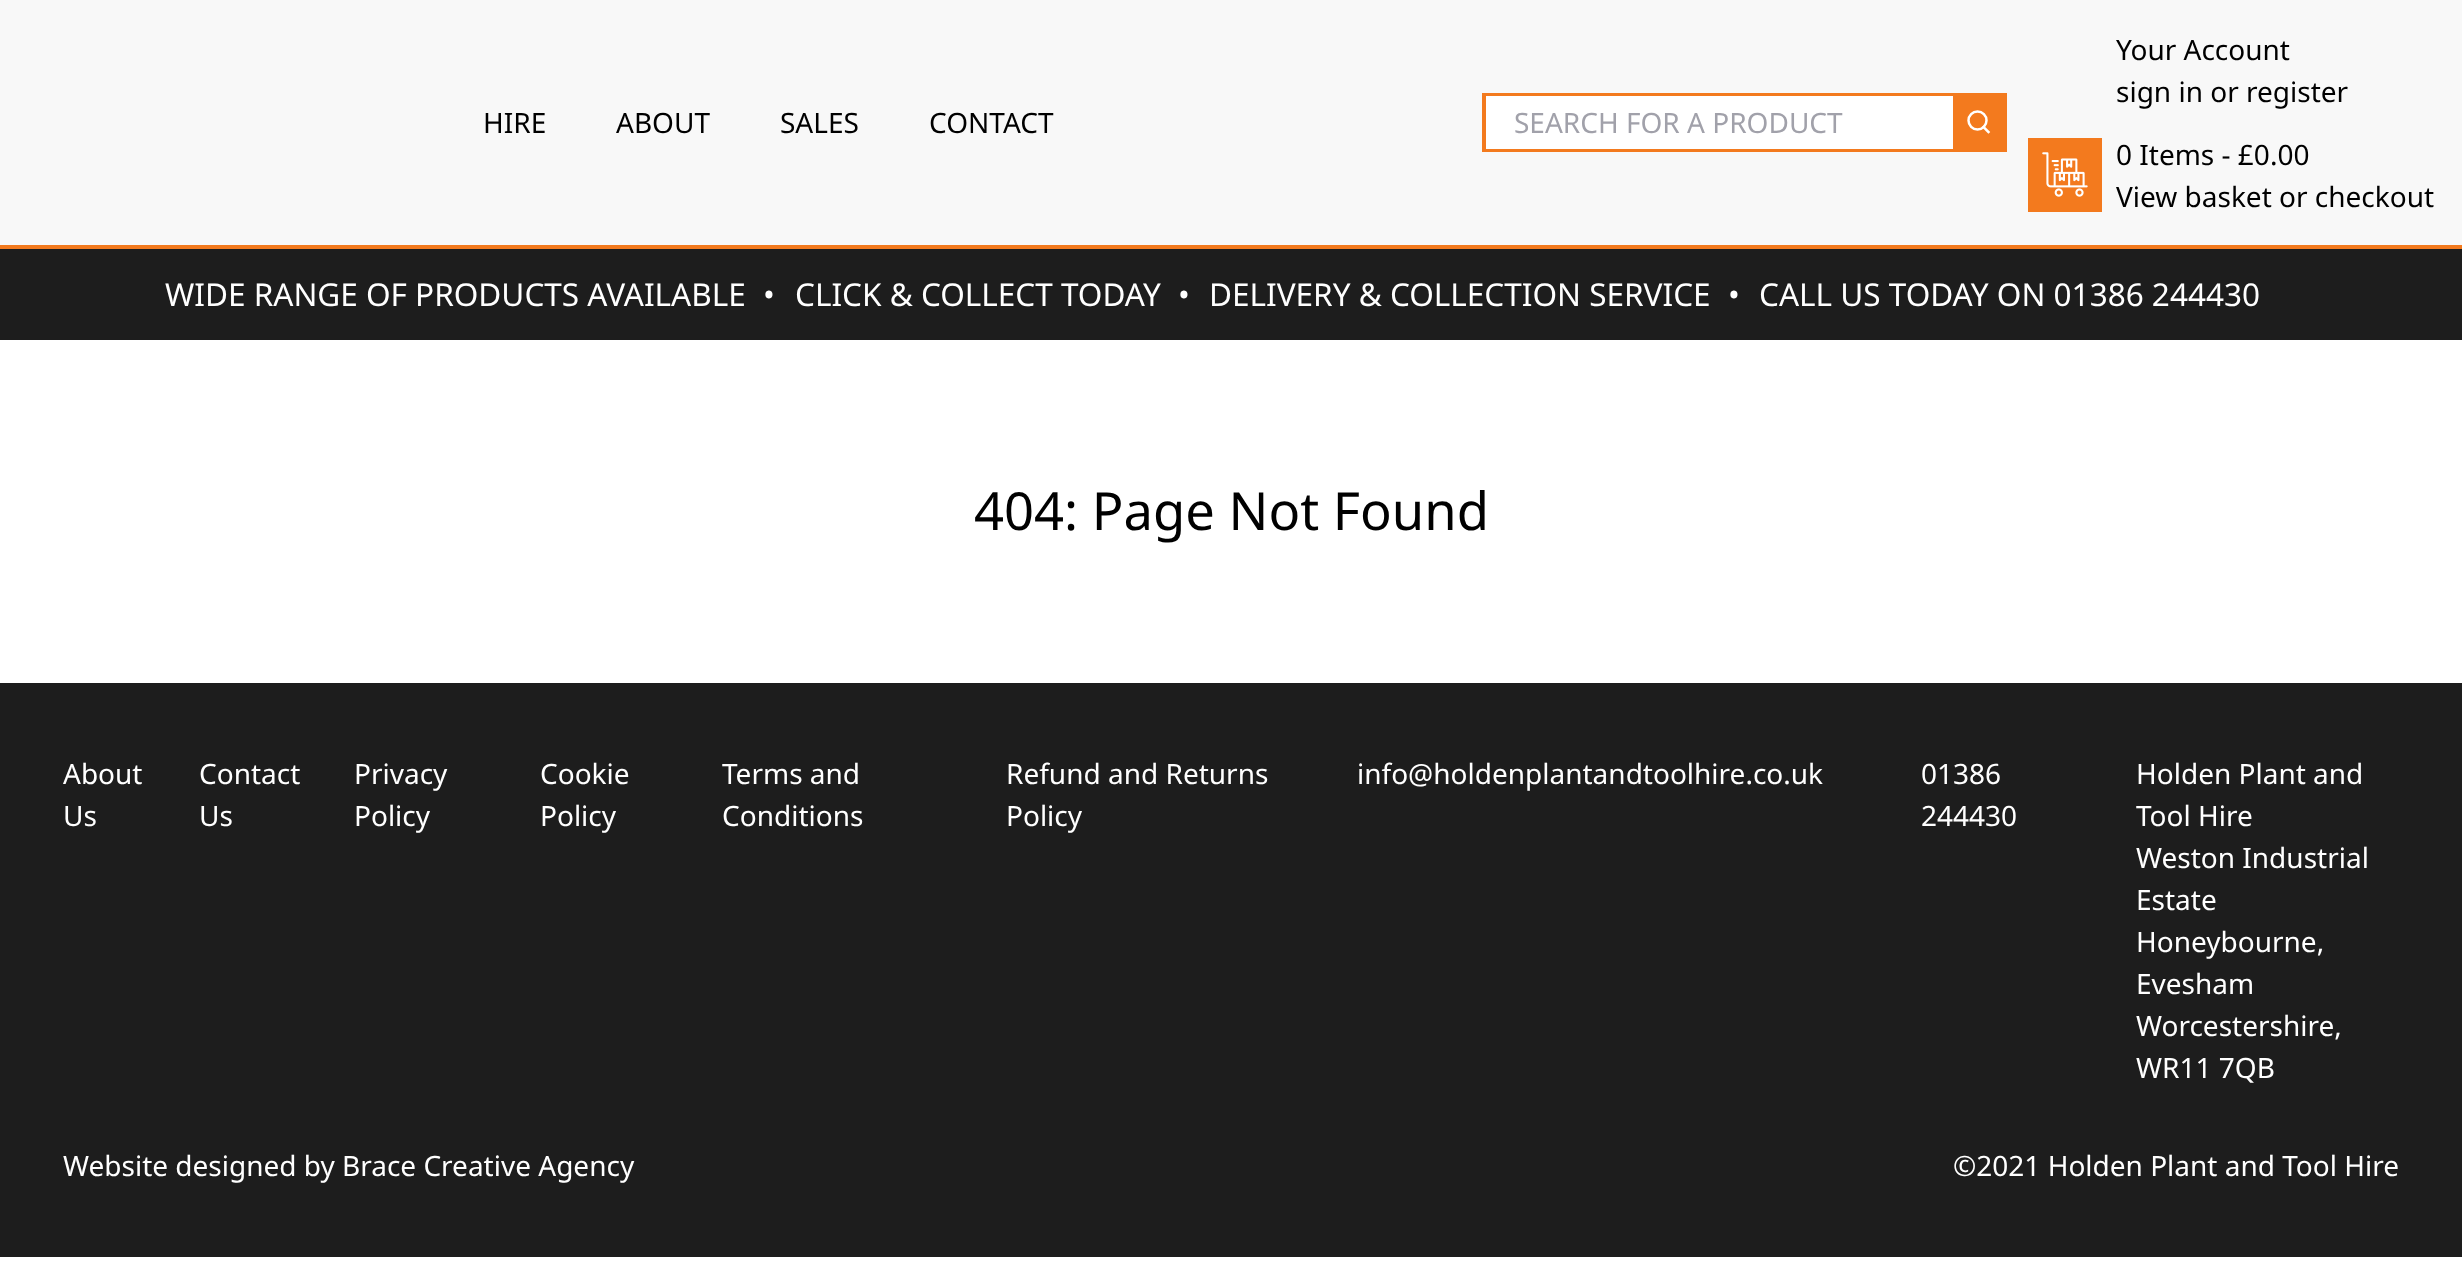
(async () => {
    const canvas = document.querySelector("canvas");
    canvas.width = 2462;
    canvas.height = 1263;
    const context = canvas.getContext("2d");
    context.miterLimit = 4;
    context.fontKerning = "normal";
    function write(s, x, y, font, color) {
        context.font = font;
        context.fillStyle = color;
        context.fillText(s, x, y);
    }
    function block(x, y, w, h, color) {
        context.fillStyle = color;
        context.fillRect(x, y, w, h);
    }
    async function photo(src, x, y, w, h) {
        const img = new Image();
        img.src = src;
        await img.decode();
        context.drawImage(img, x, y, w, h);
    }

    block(0, 0, 2462, 1263, "rgb(255, 255, 255)");
    block(0, 0, 2462, 245, "rgb(248, 248, 248)");
    block(0, 245, 2462, 4, "rgb(243, 122, 30)");
    write("HIRE", 483, 133, "28px Noto Sans", "rgb(0, 0, 0)");
    write("ABOUT", 616, 133, "28px Noto Sans", "rgb(0, 0, 0)");
    write("SALES", 780, 133, "28px Noto Sans", "rgb(0, 0, 0)");
    write("CONTACT", 929, 133, "28px Noto Sans", "rgb(0, 0, 0)");
    context.strokeStyle = "rgb(243, 122, 30)";
    context.lineWidth = 4;
    context.strokeRect(1484, 95, 521, 55);
    block(1486, 96, 467, 53, "rgb(255, 255, 255)");
    write("SEARCH FOR A PRODUCT", 1514, 133, "28px Noto Sans", "rgb(161, 161, 170)");
    block(1953, 97, 50, 51, "rgb(243, 122, 30)");
    context.beginPath();
    context.arc(1977.5, 120.5, 9, 0, Math.PI * 2);
    context.strokeStyle = "rgb(255, 255, 255)";
    context.lineWidth = 2.5;
    context.stroke();
    context.beginPath();
    context.moveTo(1988.5, 132);
    context.lineTo(1983.5, 127);
    context.lineCap = "square";
    context.lineJoin = "round";
    context.stroke();
    write("Your Account", 2116, 60, "28px Noto Sans", "rgb(0, 0, 0)");
    write("sign in or register", 2116, 102, "28px Noto Sans", "rgb(0, 0, 0)");
    block(2028, 138, 74, 74, "rgb(243, 122, 30)");
    await photo("media/1.png", 2042, 152, 46, 45);
    write("0 Items - £0.00", 2116, 165, "28px Noto Sans", "rgb(0, 0, 0)");
    write("View basket or checkout", 2116, 207, "28px Noto Sans", "rgb(0, 0, 0)");
    block(0, 249, 2462, 91, "rgb(29, 29, 29)");
    write("WIDE RANGE OF PRODUCTS AVAILABLE", 165, 306, "31.5px Noto Sans", "rgb(255, 255, 255)");
    write("•", 763, 306, "31.5px Noto Sans", "rgb(255, 255, 255)");
    write("CLICK & COLLECT TODAY", 795, 306, "31.5px Noto Sans", "rgb(255, 255, 255)");
    write("•", 1178, 306, "31.5px Noto Sans", "rgb(255, 255, 255)");
    write("DELIVERY & COLLECTION SERVICE", 1209, 306, "31.5px Noto Sans", "rgb(255, 255, 255)");
    write("•", 1728, 306, "31.5px Noto Sans", "rgb(255, 255, 255)");
    write("CALL US TODAY ON 01386 244430", 1759, 306, "31.5px Noto Sans", "rgb(255, 255, 255)");
    write("404: Page Not Found", 974, 530, "52.5px Noto Sans", "rgb(0, 0, 0)");
    block(0, 683, 2462, 574, "rgb(29, 29, 29)");
    write("About", 63, 784, "28px Noto Sans", "rgb(255, 255, 255)");
    write("Us", 63, 826, "28px Noto Sans", "rgb(255, 255, 255)");
    write("Contact", 199, 784, "28px Noto Sans", "rgb(255, 255, 255)");
    write("Us", 199, 826, "28px Noto Sans", "rgb(255, 255, 255)");
    write("Privacy", 354, 784, "28px Noto Sans", "rgb(255, 255, 255)");
    write("Policy", 354, 826, "28px Noto Sans", "rgb(255, 255, 255)");
    write("Cookie", 540, 784, "28px Noto Sans", "rgb(255, 255, 255)");
    write("Policy", 540, 826, "28px Noto Sans", "rgb(255, 255, 255)");
    write("Terms and", 722, 784, "28px Noto Sans", "rgb(255, 255, 255)");
    write("Conditions", 722, 826, "28px Noto Sans", "rgb(255, 255, 255)");
    write("Refund and Returns", 1006, 784, "28px Noto Sans", "rgb(255, 255, 255)");
    write("Policy", 1006, 826, "28px Noto Sans", "rgb(255, 255, 255)");
    write("info@holdenplantandtoolhire.co.uk", 1357, 784, "28px Noto Sans", "rgb(255, 255, 255)");
    write("01386", 1921, 784, "28px Noto Sans", "rgb(255, 255, 255)");
    write("244430", 1921, 826, "28px Noto Sans", "rgb(255, 255, 255)");
    write("Holden Plant and", 2136, 784, "28px Noto Sans", "rgb(255, 255, 255)");
    write("Tool Hire", 2136, 826, "28px Noto Sans", "rgb(255, 255, 255)");
    write("Weston Industrial", 2136, 868, "28px Noto Sans", "rgb(255, 255, 255)");
    write("Estate", 2136, 910, "28px Noto Sans", "rgb(255, 255, 255)");
    write("Honeybourne,", 2136, 952, "28px Noto Sans", "rgb(255, 255, 255)");
    write("Evesham", 2136, 994, "28px Noto Sans", "rgb(255, 255, 255)");
    write("Worcestershire,", 2136, 1036, "28px Noto Sans", "rgb(255, 255, 255)");
    write("WR11 7QB", 2136, 1078, "28px Noto Sans", "rgb(255, 255, 255)");
    write("Website designed by Brace Creative Agency", 63, 1176, "28px Noto Sans", "rgb(255, 255, 255)");
    write("©2021 Holden Plant and Tool Hire", 1953, 1176, "28px Noto Sans", "rgb(255, 255, 255)");
})();
